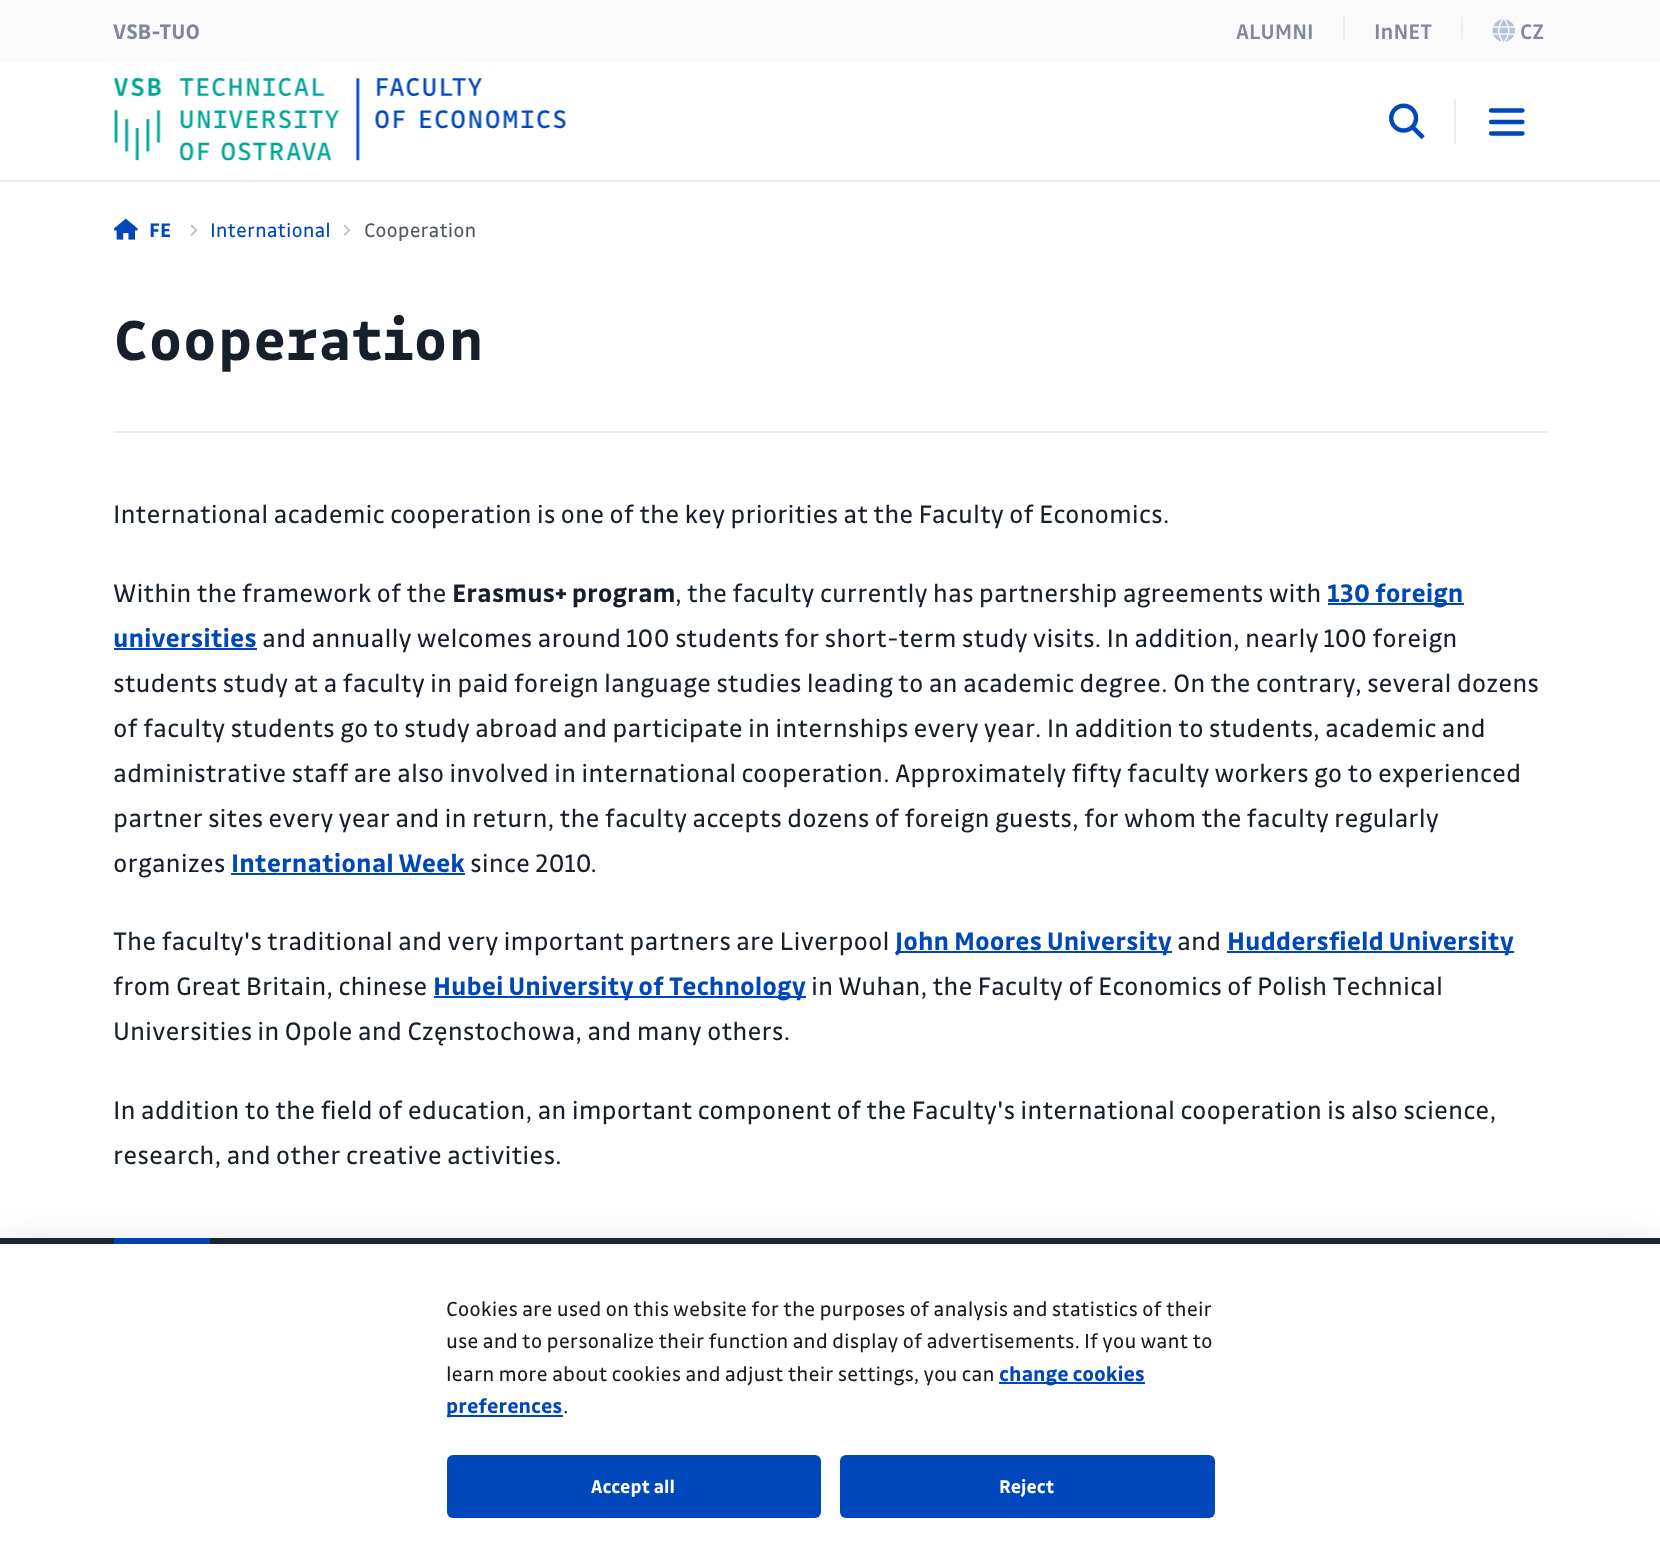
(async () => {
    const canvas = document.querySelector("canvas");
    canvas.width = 1660;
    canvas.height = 1565;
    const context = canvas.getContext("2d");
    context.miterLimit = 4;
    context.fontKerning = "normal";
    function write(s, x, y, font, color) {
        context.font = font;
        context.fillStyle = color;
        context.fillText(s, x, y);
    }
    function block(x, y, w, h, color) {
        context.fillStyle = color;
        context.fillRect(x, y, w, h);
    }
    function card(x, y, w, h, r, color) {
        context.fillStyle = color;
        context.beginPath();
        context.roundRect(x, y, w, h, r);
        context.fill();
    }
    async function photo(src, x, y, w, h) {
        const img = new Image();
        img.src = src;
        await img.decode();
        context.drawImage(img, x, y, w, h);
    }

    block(0, 0, 1660, 1565, "rgb(255, 255, 255)");
    block(0, 0, 1660, 62, "rgb(250, 250, 250)");
    write("VSB-TUO", 113, 39, "bold 22.5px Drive", "rgb(130, 136, 153)");
    write("ALUMNI", 1236, 39, "500 22.5px Drive", "rgb(130, 136, 153)");
    block(1343, 17, 2, 22, "rgb(233, 237, 244)");
    write("InNET", 1374, 39, "500 22.5px Drive", "rgb(130, 136, 153)");
    block(1461, 17, 2, 22, "rgb(233, 237, 244)");
    await photo("media/1.png", 1492, 19, 23, 23);
    write("CZ", 1520, 39, "500 22.5px Drive", "rgb(130, 136, 153)");
    block(0, 180, 1660, 2, "rgb(233, 237, 244)");
    await photo("media/2.png", 114, 78, 452, 83);
    await photo("media/3.png", 1389, 103, 36, 37);
    block(1454, 99, 2, 45, "rgb(233, 237, 244)");
    context.beginPath();
    context.moveTo(1491, 110.5);
    context.lineTo(1522.5, 110.5);
    context.moveTo(1491, 122);
    context.lineTo(1522.5, 122);
    context.moveTo(1491, 133.5);
    context.lineTo(1522.5, 133.5);
    context.strokeStyle = "rgb(0, 71, 187)";
    context.lineWidth = 4.3;
    context.lineCap = "round";
    context.stroke();
    await photo("media/4.png", 114, 218, 24, 22);
    write("FE", 149, 237, "bold 21px Drive", "rgb(0, 71, 187)");
    await photo("media/5.png", 190, 224, 8, 12);
    write("International", 210, 237, "21px Drive", "rgb(0, 71, 187)");
    await photo("media/5.png", 343, 224, 8, 12);
    write("Cooperation", 364, 237, "21px Drive", "rgb(81, 87, 96)");
    write("Cooperation", 113, 360, "bold 60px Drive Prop", "rgb(23, 31, 43)");
    block(114, 431, 1434, 2, "rgb(233, 237, 244)");
    write("International academic cooperation is one of the key priorities at the Faculty of Economics.", 113, 523, "27px Drive", "rgb(23, 31, 43)");
    write("Within the framework of the", 113, 602, "27px Drive", "rgb(23, 31, 43)");
    write("Erasmus+ program", 452, 602, "bold 27px Drive", "rgb(23, 31, 43)");
    write(", the faculty currently has partnership agreements with", 675, 602, "27px Drive", "rgb(23, 31, 43)");
    block(1328, 603, 136, 2, "rgb(0, 71, 187)");
    write("130 foreign", 1327, 602, "bold 27px Drive", "rgb(0, 71, 187)");
    write("universities", 113, 647, "bold 27px Drive", "rgb(0, 71, 187)");
    block(114, 648, 143, 2, "rgb(0, 71, 187)");
    write("and annually welcomes around 100 students for short-term study visits. In addition, nearly 100 foreign", 262, 647, "27px Drive", "rgb(23, 31, 43)");
    write("students study at a faculty in paid foreign language studies leading to an academic degree. On the contrary, several dozens", 113, 692, "27px Drive", "rgb(23, 31, 43)");
    write("of faculty students go to study abroad and participate in internships every year. In addition to students, academic and", 113, 737, "27px Drive", "rgb(23, 31, 43)");
    write("administrative staff are also involved in international cooperation. Approximately fifty faculty workers go to experienced", 113, 782, "27px Drive", "rgb(23, 31, 43)");
    write("partner sites every year and in return, the faculty accepts dozens of foreign guests, for whom the faculty regularly", 113, 827, "27px Drive", "rgb(23, 31, 43)");
    write("organizes", 113, 872, "27px Drive", "rgb(23, 31, 43)");
    write("International Week", 231, 872, "bold 27px Drive", "rgb(0, 71, 187)");
    block(231, 873, 234, 2, "rgb(0, 71, 187)");
    write("since 2010.", 470, 872, "27px Drive", "rgb(23, 31, 43)");
    write("The faculty's traditional and very important partners are Liverpool", 113, 950, "27px Drive", "rgb(23, 31, 43)");
    block(896, 951, 276, 2, "rgb(0, 71, 187)");
    write("John Moores University", 895, 950, "bold 27px Drive", "rgb(0, 71, 187)");
    write("and", 1177, 950, "27px Drive", "rgb(23, 31, 43)");
    block(1227, 951, 287, 2, "rgb(0, 71, 187)");
    write("Huddersfield University", 1227, 950, "bold 27px Drive", "rgb(0, 71, 187)");
    write("from Great Britain, chinese", 113, 995, "27px Drive", "rgb(23, 31, 43)");
    block(434, 996, 372, 2, "rgb(0, 71, 187)");
    write("Hubei University of Technology", 433, 995, "bold 27px Drive", "rgb(0, 71, 187)");
    write("in Wuhan, the Faculty of Economics of Polish Technical", 811, 995, "27px Drive", "rgb(23, 31, 43)");
    write("Universities in Opole and Częnstochowa, and many others.", 113, 1040, "27px Drive", "rgb(23, 31, 43)");
    write("In addition to the field of education, an important component of the Faculty's international cooperation is also science,", 113, 1119, "27px Drive", "rgb(23, 31, 43)");
    write("research, and other creative activities.", 113, 1164, "27px Drive", "rgb(23, 31, 43)");
    block(0, 1238, 1660, 6, "rgb(30, 40, 56)");
    block(114, 1238, 96, 6, "rgb(0, 71, 187)");
    context.fillStyle = "rgba(2, 2, 3, 0.28)";
    context.filter = "blur(22.5px)";
    context.beginPath();
    context.rect(0, 1259, 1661, 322);
    context.fill();
    context.filter = "none";
    block(0, 1244, 1660, 321, "rgb(255, 255, 255)");
    write("Cookies are used on this website for the purposes of analysis and statistics of their", 446, 1316, "21.6px Drive", "rgb(26, 26, 26)");
    write("use and to personalize their function and display of advertisements. If you want to", 446, 1348, "21.6px Drive", "rgb(26, 26, 26)");
    write("learn more about cookies and adjust their settings, you can", 446, 1381, "21.6px Drive", "rgb(26, 26, 26)");
    block(999, 1382, 146, 2, "rgb(0, 71, 187)");
    write("change cookies", 999, 1381, "bold 21.6px Drive", "rgb(0, 71, 187)");
    block(447, 1415, 116, 2, "rgb(0, 71, 187)");
    write("preferences", 446, 1413, "bold 21.6px Drive", "rgb(0, 71, 187)");
    write(".", 563, 1413, "21.6px Drive", "rgb(26, 26, 26)");
    card(447, 1455, 374, 63, 6, "rgb(0, 71, 187)");
    write("Accept all", 591, 1493, "bold 19.5px Drive", "rgb(255, 255, 255)");
    card(840, 1455, 375, 63, 6, "rgb(0, 71, 187)");
    write("Reject", 999, 1493, "bold 19.5px Drive", "rgb(255, 255, 255)");
})();
